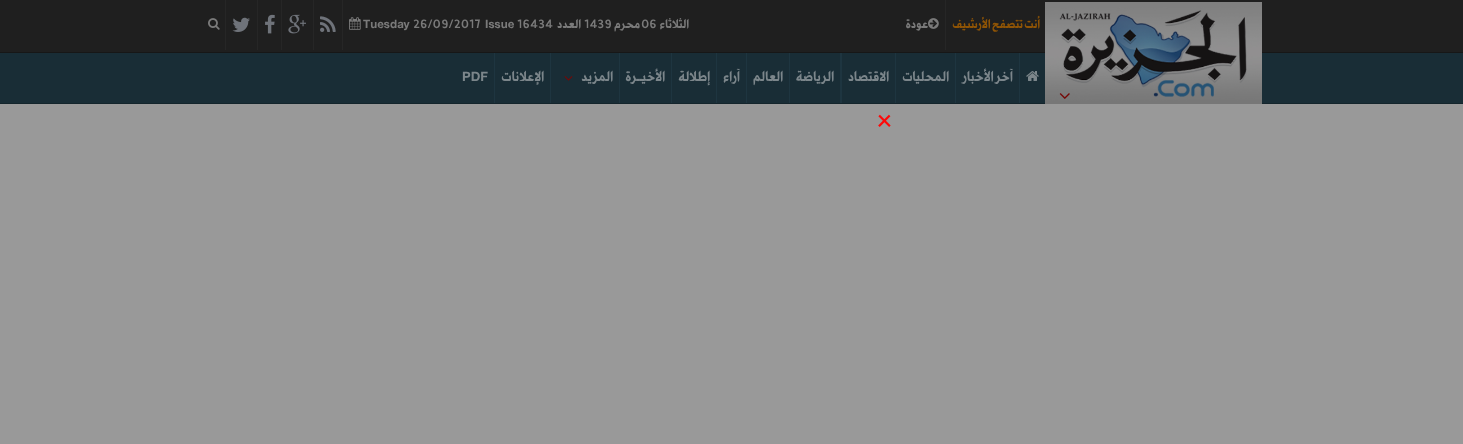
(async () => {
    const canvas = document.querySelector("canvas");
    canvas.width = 1463;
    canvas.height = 444;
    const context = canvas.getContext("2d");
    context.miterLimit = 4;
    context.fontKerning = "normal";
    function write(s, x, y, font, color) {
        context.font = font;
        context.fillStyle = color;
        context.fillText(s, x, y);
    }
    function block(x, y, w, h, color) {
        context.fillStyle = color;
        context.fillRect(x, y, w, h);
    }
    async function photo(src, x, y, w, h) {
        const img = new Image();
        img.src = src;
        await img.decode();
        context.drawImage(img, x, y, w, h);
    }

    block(0, 0, 1463, 444, "rgb(153, 153, 153)");
    block(0, 0, 1463, 52, "rgb(31, 31, 31)");
    block(0, 52, 1463, 1, "rgb(23, 23, 23)");
    context.direction = "rtl";
    write("أنت تتصفح الأرشيف", 1040, 28, "bold 12.5px 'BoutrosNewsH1'", "rgb(143, 84, 5)");
    block(945, 0, 1, 50, "rgb(38, 38, 38)");
    await photo("media/1.png", 928, 18, 11, 11);
    write("عودة", 928, 28, "bold 12.5px 'BoutrosNewsH1'", "rgb(122, 122, 122)");
    write("الثلاثاء", 689, 28, "bold 12.5px 'BoutrosNewsH1'", "rgb(122, 122, 122)");
    context.direction = "ltr";
    write("06", 641, 28, "bold 12.5px 'BoutrosNewsH1'", "rgb(122, 122, 122)");
    context.direction = "rtl";
    write("محرم", 640, 28, "bold 12.5px 'BoutrosNewsH1'", "rgb(122, 122, 122)");
    context.direction = "ltr";
    write("1439", 584, 28, "bold 12.5px 'BoutrosNewsH1'", "rgb(122, 122, 122)");
    context.direction = "rtl";
    write("العدد", 581, 28, "bold 12.5px 'BoutrosNewsH1'", "rgb(122, 122, 122)");
    context.direction = "ltr";
    write("16434", 517, 28, "bold 12.5px 'BoutrosNewsH1'", "rgb(122, 122, 122)");
    write("Issue", 485, 28, "bold 12.5px 'BoutrosNewsH1'", "rgb(122, 122, 122)");
    write("26/09/2017", 413, 28, "bold 12.5px 'BoutrosNewsH1'", "rgb(122, 122, 122)");
    write("Tuesday", 363, 28, "bold 12.5px 'BoutrosNewsH1'", "rgb(122, 122, 122)");
    await photo("media/2.png", 349, 17, 12, 13);
    block(342, 0, 1, 50, "rgb(38, 38, 38)");
    await photo("media/3.png", 320, 16, 16, 16);
    block(313, 0, 1, 50, "rgb(38, 38, 38)");
    await photo("media/4.png", 288, 14, 18, 20);
    block(281, 0, 1, 50, "rgb(38, 38, 38)");
    await photo("media/5.png", 265, 14, 10, 20);
    block(257, 0, 1, 50, "rgb(38, 38, 38)");
    await photo("media/6.png", 232, 17, 18, 15);
    block(225, 0, 1, 50, "rgb(38, 38, 38)");
    await photo("media/7.png", 208, 18, 12, 12);
    block(0, 53, 1463, 50, "rgb(25, 45, 54)");
    block(0, 103, 1463, 1, "rgb(20, 37, 44)");
    await photo("media/8.png", 1045, 2, 217, 102);
    await photo("media/9.png", 1059, 93, 11, 6);
    await photo("media/10.png", 1026, 71, 13, 10);
    block(1019, 53, 1, 50, "rgb(30, 53, 64)");
    context.direction = "rtl";
    write("آخر الأخبار", 1013, 81, "bold 14px 'BoutrosNewsH1'", "rgb(124, 134, 139)");
    block(955, 53, 1, 50, "rgb(30, 53, 64)");
    write("المحليات", 949, 81, "bold 14px 'BoutrosNewsH1'", "rgb(124, 134, 139)");
    block(895, 53, 1, 50, "rgb(30, 53, 64)");
    write("الاقتصاد", 889, 81, "bold 14px 'BoutrosNewsH1'", "rgb(124, 134, 139)");
    block(840, 53, 2, 50, "rgb(30, 53, 64)");
    write("الرياضة", 834, 81, "bold 14px 'BoutrosNewsH1'", "rgb(124, 134, 139)");
    block(789, 53, 1, 50, "rgb(30, 53, 64)");
    write("العالم", 783, 81, "bold 14px 'BoutrosNewsH1'", "rgb(124, 134, 139)");
    block(746, 53, 1, 50, "rgb(30, 53, 64)");
    write("آراء", 740, 81, "bold 14px 'BoutrosNewsH1'", "rgb(124, 134, 139)");
    block(716, 53, 1, 50, "rgb(30, 53, 64)");
    write("إطلالة", 710, 81, "bold 14px 'BoutrosNewsH1'", "rgb(124, 134, 139)");
    block(671, 53, 1, 50, "rgb(30, 53, 64)");
    write("الأخيــرة", 665, 81, "bold 14px 'BoutrosNewsH1'", "rgb(124, 134, 139)");
    block(619, 53, 1, 50, "rgb(30, 53, 64)");
    write("المزيد", 613, 81, "bold 14px 'BoutrosNewsH1'", "rgb(124, 134, 139)");
    await photo("media/11.png", 564, 76, 9, 5);
    block(550, 53, 1, 50, "rgb(30, 53, 64)");
    write("الإعلانات", 544, 81, "bold 14px 'BoutrosNewsH1'", "rgb(124, 134, 139)");
    block(494, 53, 1, 50, "rgb(30, 53, 64)");
    context.direction = "ltr";
    write("PDF", 462, 81, "bold 14px 'BoutrosNewsH1'", "rgb(124, 134, 139)");
    write("×", 877, 127, "bold 28px 'BoutrosNewsH1'", "rgb(255, 8, 8)");
})();
